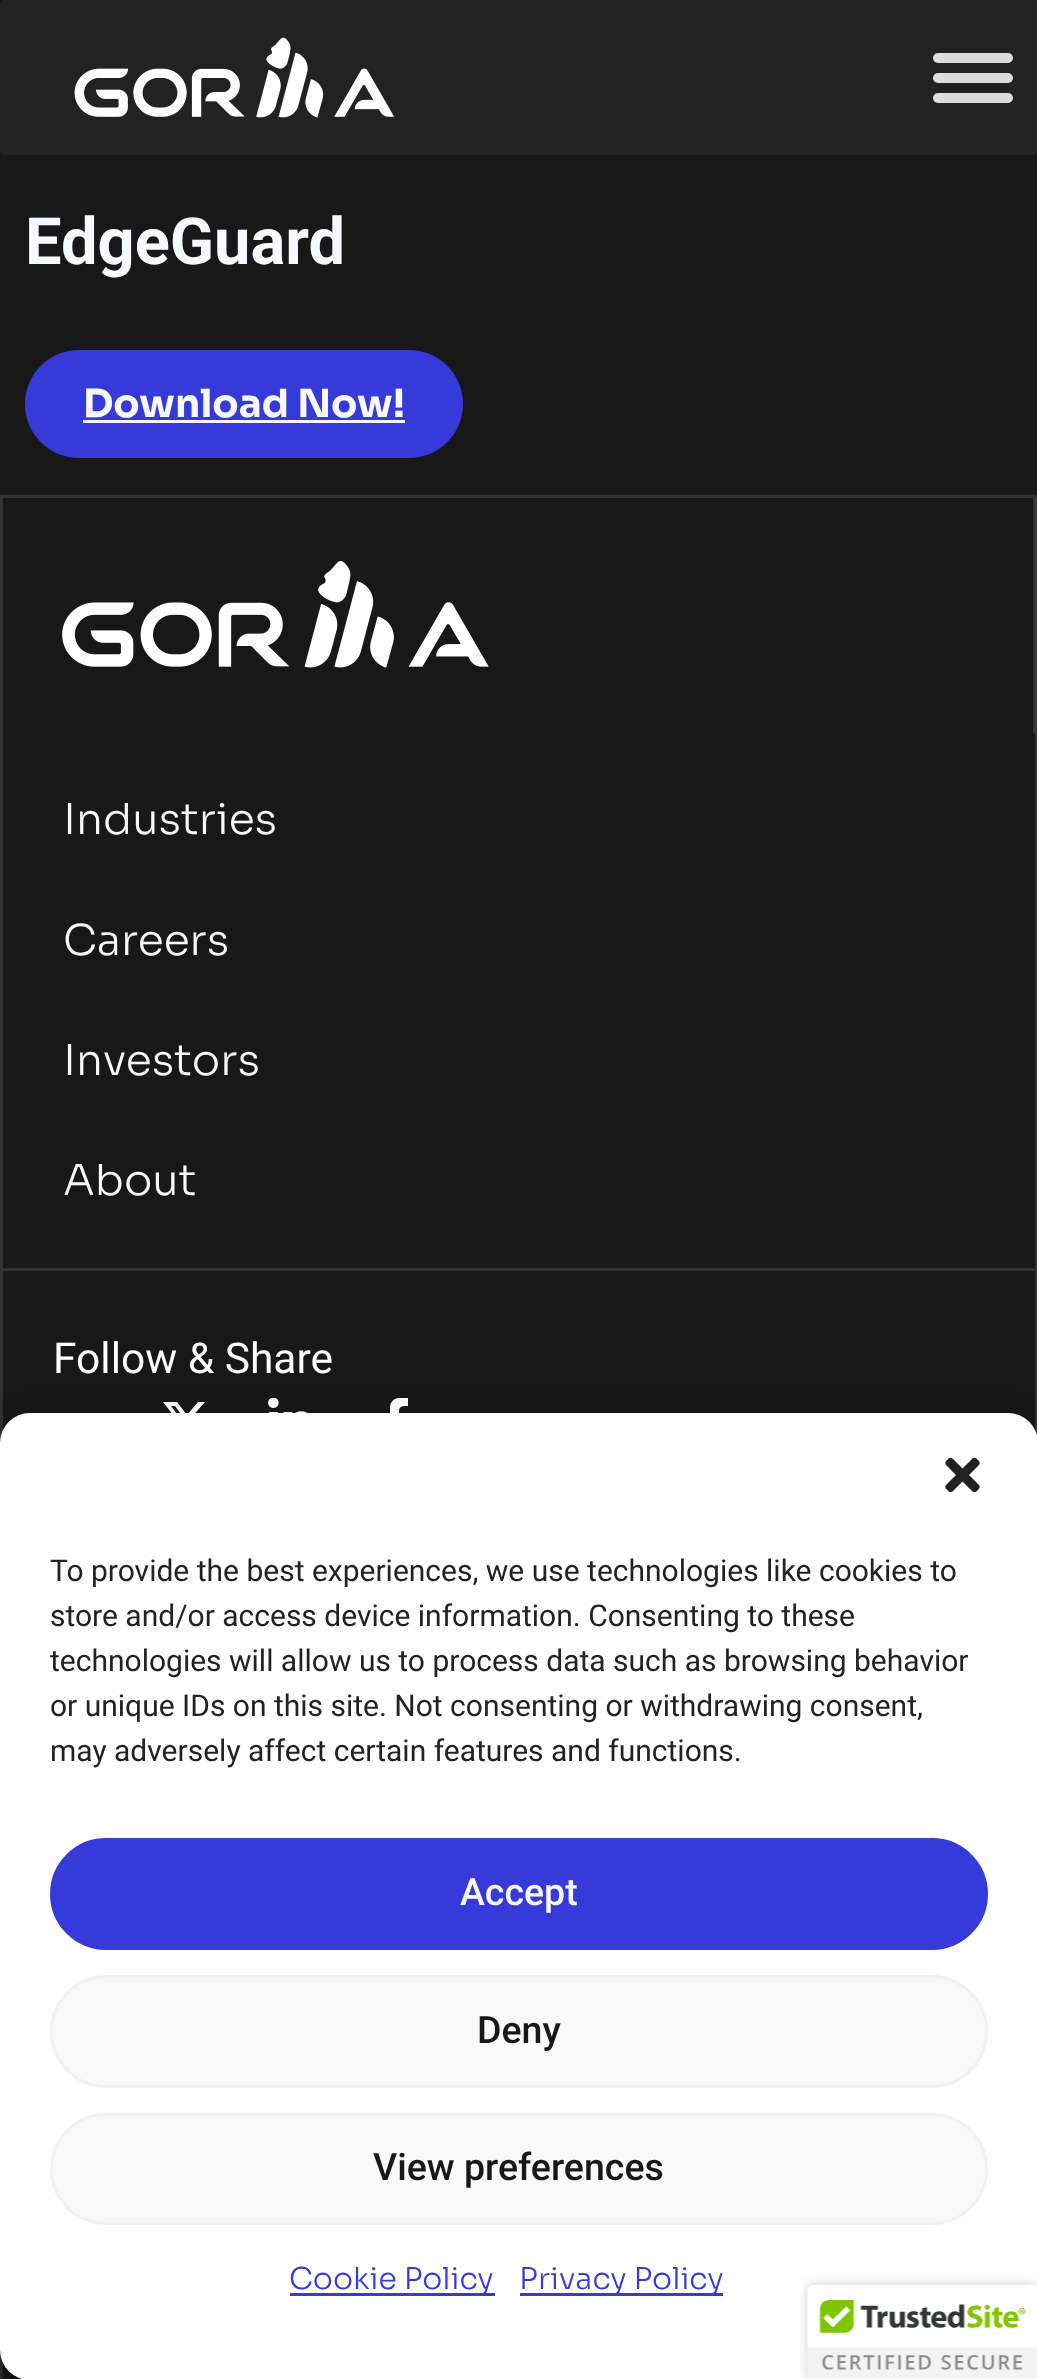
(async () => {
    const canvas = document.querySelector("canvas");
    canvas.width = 1037;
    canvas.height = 2379;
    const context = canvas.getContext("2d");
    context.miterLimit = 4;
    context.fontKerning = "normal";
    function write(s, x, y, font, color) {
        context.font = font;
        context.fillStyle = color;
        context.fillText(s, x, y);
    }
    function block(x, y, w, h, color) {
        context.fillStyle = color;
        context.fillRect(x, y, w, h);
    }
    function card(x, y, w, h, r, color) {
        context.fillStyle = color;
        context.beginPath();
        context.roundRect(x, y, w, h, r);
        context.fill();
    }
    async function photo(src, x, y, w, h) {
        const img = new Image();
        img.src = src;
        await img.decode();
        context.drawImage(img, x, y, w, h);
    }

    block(0, 0, 1037, 2379, "rgb(24, 24, 24)");
    card(0, 0, 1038, 155, 5, "rgb(34, 34, 34)");
    card(933, 53, 80, 10, 5, "rgb(221, 221, 221)");
    card(933, 73, 80, 10, 5, "rgb(221, 221, 221)");
    card(933, 93, 80, 10, 5, "rgb(221, 221, 221)");
    await photo("media/1.png", 74, 37, 320, 81);
    write("EdgeGuard", 25, 264, "bold 65px Roboto", "rgb(246, 249, 255)");
    card(25, 350, 438, 108, 54, "rgb(54, 58, 216)");
    write("Download Now!", 83, 417, "bold 38.75px Sora", "rgb(248, 248, 248)");
    block(83, 420, 322, 3, "rgb(248, 248, 248)");
    context.strokeStyle = "rgb(49, 49, 49)";
    context.lineWidth = 3;
    context.strokeRect(1.5, 496.5, 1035, 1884);
    block(1033, 498, 3, 235, "rgba(255, 255, 255, 0.11)");
    await photo("media/2.png", 62, 561, 427, 107);
    block(3, 1268, 1032, 3, "rgb(49, 49, 49)");
    write("Industries", 63, 834, "300 42.5px Sora", "rgb(248, 248, 248)");
    write("Careers", 63, 955, "300 42.5px Sora", "rgb(248, 248, 248)");
    write("Investors", 63, 1075, "300 42.5px Sora", "rgb(248, 248, 248)");
    write("About", 63, 1195, "300 42.5px Sora", "rgb(248, 248, 248)");
    write("Follow & Share", 53, 1373, "42.5px Roboto", "rgb(255, 255, 255)");
    context.beginPath();
    context.moveTo(198, 1402);
    context.lineTo(205, 1402);
    context.lineTo(190, 1419);
    context.lineTo(208, 1443);
    context.lineTo(194, 1443);
    context.lineTo(183, 1429);
    context.lineTo(170, 1443);
    context.lineTo(163, 1443);
    context.lineTo(180, 1424);
    context.lineTo(163, 1402);
    context.lineTo(177, 1402);
    context.lineTo(187, 1415);
    context.closePath();
    context.moveTo(196, 1439);
    context.lineTo(199, 1439);
    context.lineTo(175, 1406);
    context.lineTo(171, 1406);
    context.closePath();
    context.fill();
    await photo("media/3.png", 268, 1398, 40, 15);
    context.save();
    context.beginPath();
    context.rect(370, 1398, 50, 50);
    context.clip();
    context.beginPath();
    context.moveTo(407, 1426);
    context.lineTo(408, 1417);
    context.lineTo(399, 1417);
    context.bezierCurveTo(399, 1408, 398, 1406, 408, 1406);
    context.lineTo(408, 1398);
    context.bezierCurveTo(401, 1397, 391, 1397, 390, 1407);
    context.lineTo(390, 1417);
    context.lineTo(382, 1417);
    context.lineTo(382, 1426);
    context.lineTo(390, 1426);
    context.lineTo(390, 1448);
    context.lineTo(399, 1448);
    context.lineTo(399, 1426);
    context.closePath();
    context.fill();
    context.restore();
    context.fillStyle = "rgba(0, 0, 0, 0.23)";
    context.filter = "blur(7.5px)";
    context.beginPath();
    context.roundRect(0, 1428, 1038, 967, 30);
    context.fill();
    context.filter = "none";
    context.fillStyle = "rgba(0, 0, 0, 0.19)";
    context.filter = "blur(25px)";
    context.beginPath();
    context.roundRect(0, 1438, 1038, 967, 30);
    context.fill();
    context.filter = "none";
    card(0, 1413, 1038, 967, 30, "rgb(255, 255, 255)");
    await photo("media/4.png", 945, 1457, 35, 36);
    write("To provide the best experiences, we use technologies like cookies to", 50, 1581, "30px Roboto", "rgb(34, 34, 34)");
    write("store and/or access device information. Consenting to these", 50, 1626, "30px Roboto", "rgb(34, 34, 34)");
    write("technologies will allow us to process data such as browsing behavior", 50, 1671, "30px Roboto", "rgb(34, 34, 34)");
    write("or unique IDs on this site. Not consenting or withdrawing consent,", 50, 1716, "30px Roboto", "rgb(34, 34, 34)");
    write("may adversely affect certain features and functions.", 50, 1761, "30px Roboto", "rgb(34, 34, 34)");
    context.fillStyle = "rgb(54, 58, 216)";
    context.beginPath();
    context.roundRect(51.5, 1839.5, 935, 109, 54.5);
    context.fill();
    context.strokeStyle = "rgb(54, 58, 216)";
    context.stroke();
    write("Accept", 460, 1905, "500 37.5px Roboto", "rgb(248, 248, 248)");
    context.fillStyle = "rgb(249, 249, 249)";
    context.beginPath();
    context.roundRect(51.5, 1976.5, 935, 110, 55);
    context.fill();
    context.strokeStyle = "rgb(242, 242, 242)";
    context.stroke();
    write("Deny", 477, 2043, "500 37.5px Roboto", "rgb(24, 24, 24)");
    context.fillStyle = "rgb(249, 249, 249)";
    context.beginPath();
    context.roundRect(51.5, 2114.5, 935, 109, 54.5);
    context.fill();
    context.stroke();
    write("View preferences", 373, 2180, "500 37.5px Roboto", "rgb(24, 24, 24)");
    block(290, 2293, 205, 3, "rgb(54, 58, 216)");
    write("Cookie Policy", 289, 2289, "300 30px Sora", "rgb(54, 58, 216)");
    block(520, 2293, 203, 3, "rgb(54, 58, 216)");
    write("Privacy Policy", 519, 2289, "300 30px Sora", "rgb(54, 58, 216)");
    context.fillStyle = "rgba(0, 0, 0, 0.2)";
    context.filter = "blur(6px)";
    context.beginPath();
    context.roundRect(808, 2285, 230, 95, 5);
    context.fill();
    context.filter = "none";
    context.fillStyle = "rgb(255, 255, 255)";
    context.beginPath();
    context.moveTo(813, 2285);
    context.lineTo(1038, 2285);
    context.lineTo(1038, 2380);
    context.lineTo(808, 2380);
    context.lineTo(808, 2290);
    context.bezierCurveTo(808, 2287, 810, 2285, 813, 2285);
    context.closePath();
    context.fill();
    await photo("media/5.png", 807, 2285, 230, 94);
})();
